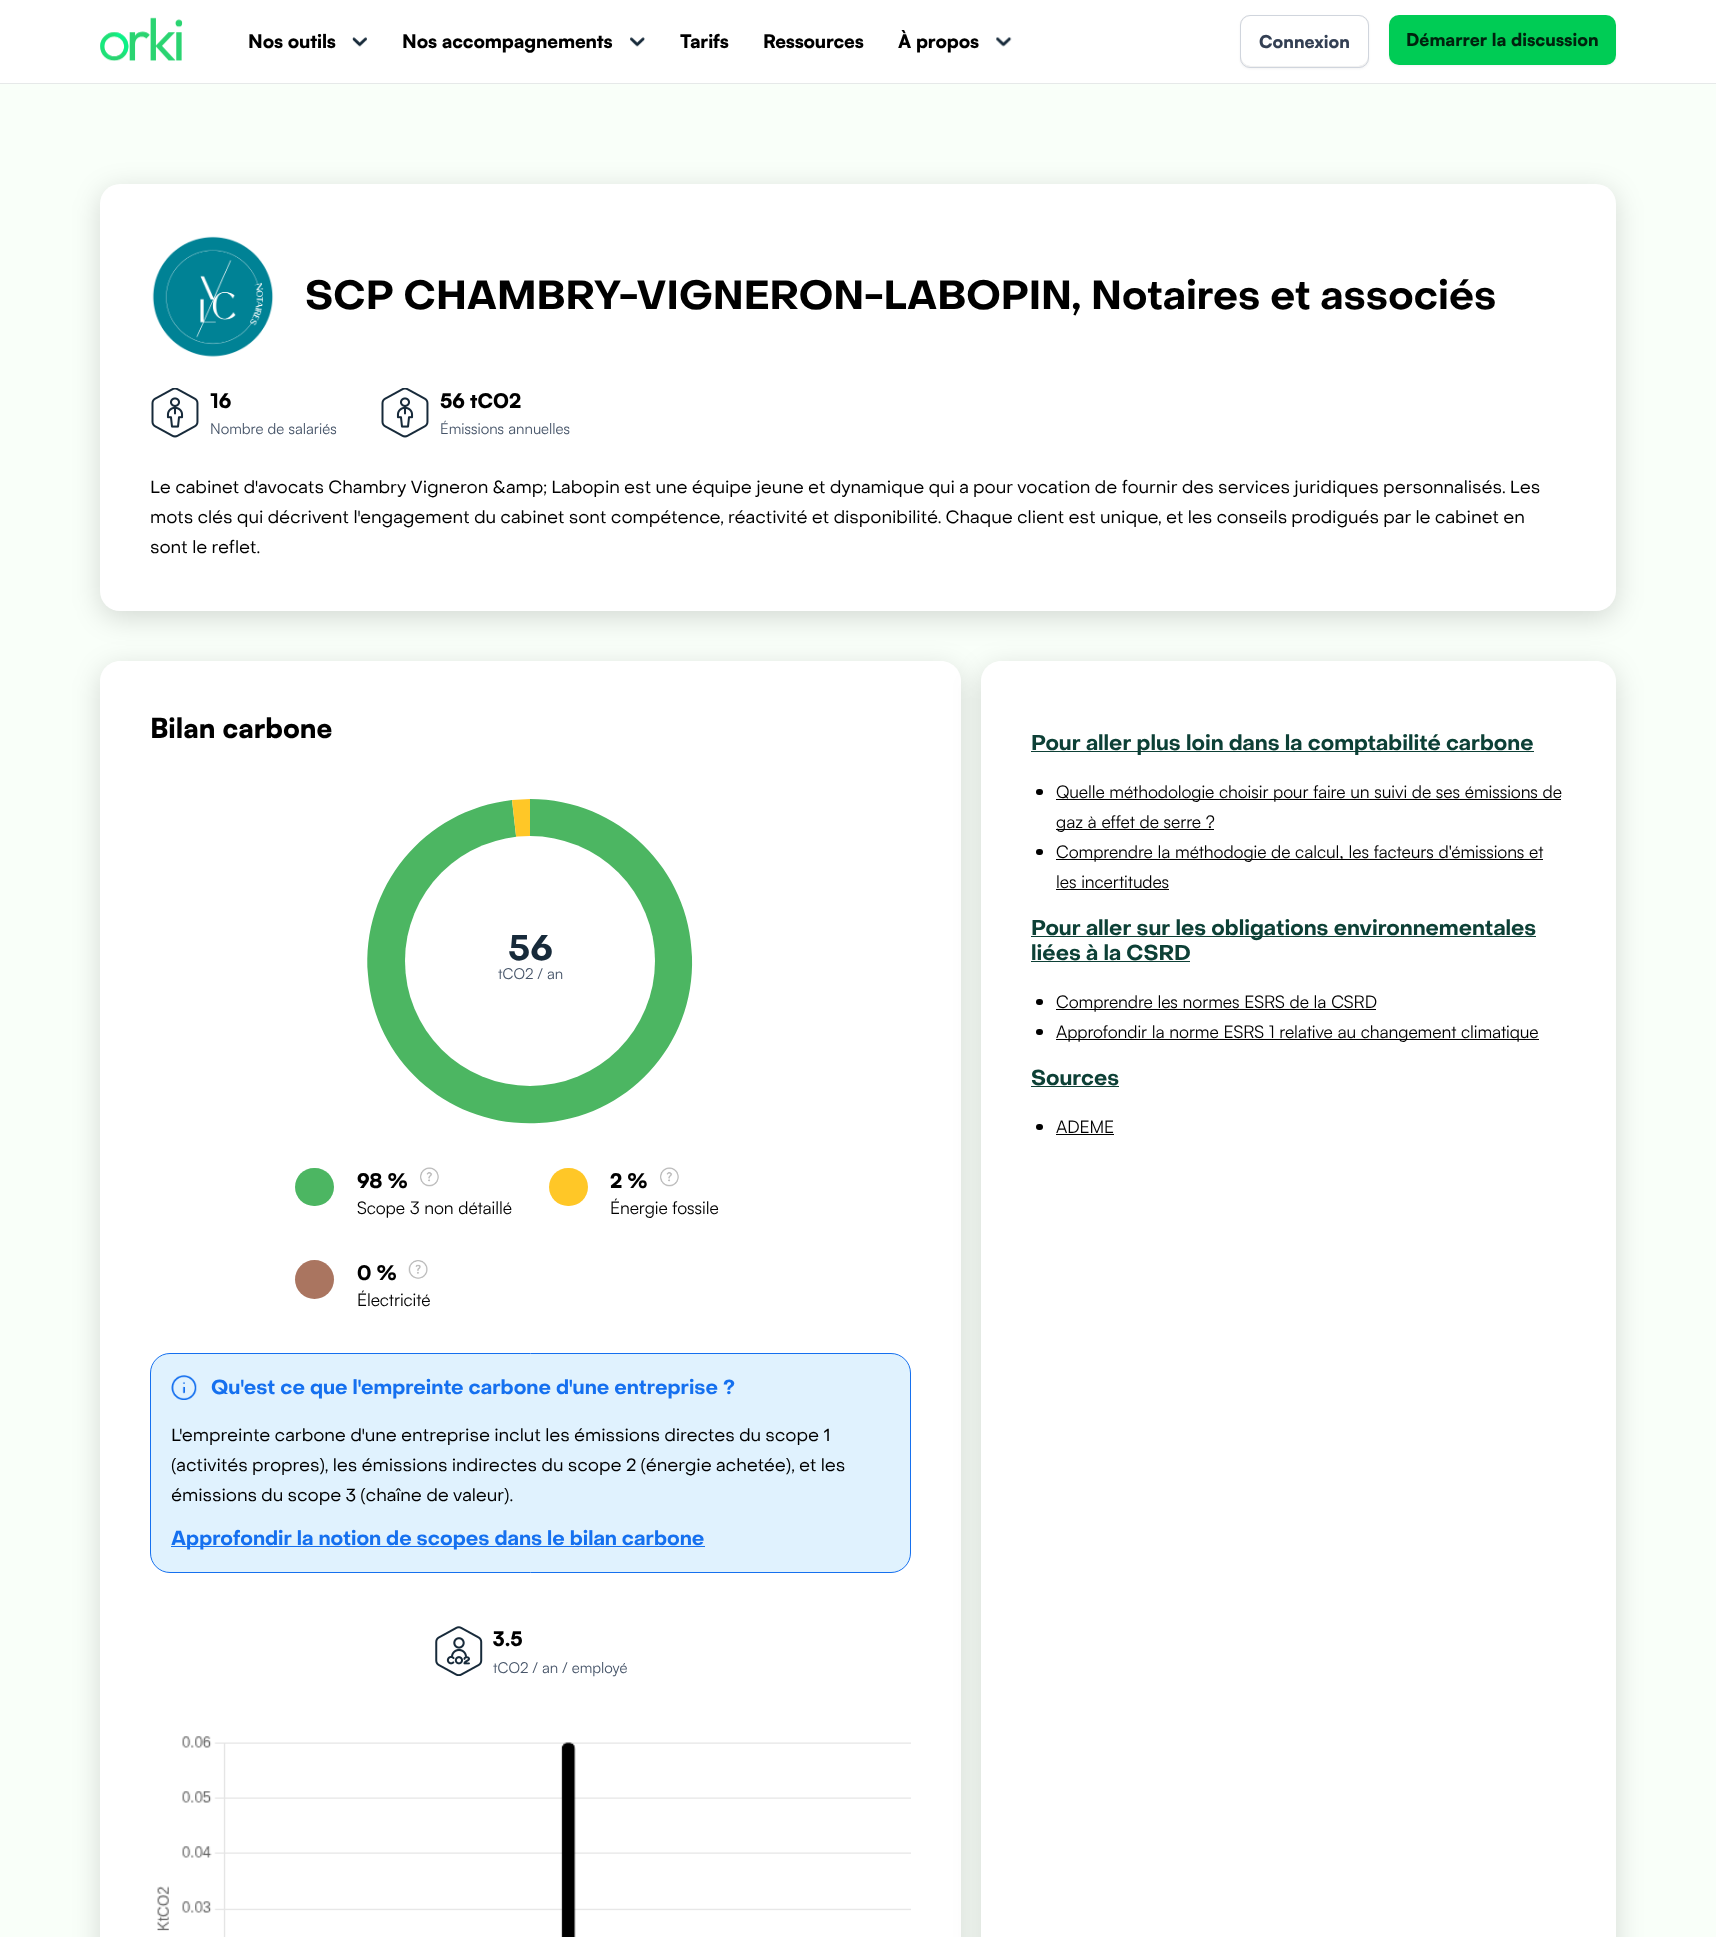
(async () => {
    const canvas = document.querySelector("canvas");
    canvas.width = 1716;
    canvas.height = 1937;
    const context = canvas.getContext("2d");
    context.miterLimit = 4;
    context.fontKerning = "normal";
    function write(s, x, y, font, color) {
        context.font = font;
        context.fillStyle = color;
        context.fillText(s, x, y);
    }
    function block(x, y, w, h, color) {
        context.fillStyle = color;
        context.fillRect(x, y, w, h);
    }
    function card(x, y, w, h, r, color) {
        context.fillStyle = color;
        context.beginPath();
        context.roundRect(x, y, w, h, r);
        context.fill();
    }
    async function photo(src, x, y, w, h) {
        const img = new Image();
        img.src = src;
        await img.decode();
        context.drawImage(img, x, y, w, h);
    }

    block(0, 0, 1716, 1937, "rgb(255, 255, 255)");
    block(0, 83, 1716, 1, "rgb(230, 233, 233)");
    await photo("media/1.png", 100, 17, 83, 44);
    context.letterSpacing = "-0.1px";
    write("Nos outils", 248, 48, "900 18.75px Satoshi", "rgb(0, 0, 0)");
    await photo("media/2.png", 352, 37, 15, 10);
    write("Nos accompagnements", 402, 48, "900 18.75px Satoshi", "rgb(0, 0, 0)");
    await photo("media/3.png", 630, 37, 15, 10);
    write("Tarifs", 680, 48, "900 18.75px Satoshi", "rgb(0, 0, 0)");
    write("Ressources", 763, 48, "900 18.75px Satoshi", "rgb(0, 0, 0)");
    write("À propos", 898, 48, "900 18.75px Satoshi", "rgb(0, 0, 0)");
    await photo("media/4.png", 996, 37, 16, 10);
    context.fillStyle = "rgba(16, 24, 40, 0.05)";
    context.filter = "blur(1px)";
    context.beginPath();
    context.roundRect(1240, 16, 129, 53, 10);
    context.fill();
    context.filter = "none";
    context.fillStyle = "rgb(241, 241, 241)";
    context.beginPath();
    context.roundRect(1240.5, 15.5, 128, 52, 9.5);
    context.fill();
    context.strokeStyle = "rgb(208, 213, 221)";
    context.stroke();
    context.save();
    context.beginPath();
    context.roundRect(1241, 16, 127, 50, 9);
    context.clip();
    card(1241, 16, 127, 50, 10, "rgb(255, 255, 255)");
    context.restore();
    context.letterSpacing = "0px";
    write("Connexion", 1259, 48, "900 17.5px Satoshi", "rgb(52, 64, 84)");
    context.fillStyle = "rgba(16, 24, 40, 0.05)";
    context.filter = "blur(1px)";
    context.beginPath();
    context.roundRect(1389, 16, 227, 50, 10);
    context.fill();
    context.filter = "none";
    card(1389, 15, 227, 50, 10, "rgb(0, 204, 85)");
    write("Démarrer la discussion", 1406, 46, "900 17.5px Satoshi", "rgb(0, 34, 14)");
    block(0, 84, 1716, 1853, "rgb(249, 255, 249)");
    context.fillStyle = "rgba(0, 0, 0, 0.15)";
    context.filter = "blur(14px)";
    context.beginPath();
    context.roundRect(100, 190, 1516, 428, 20);
    context.fill();
    context.filter = "none";
    card(100, 184, 1516, 427, 20, "rgb(255, 255, 255)");
    await photo("media/5.png", 152, 236, 122, 121);
    write("SCP CHAMBRY-VIGNERON-LABOPIN, Notaires et associés", 305, 309, "bold 40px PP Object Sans", "rgb(0, 0, 0)");
    await photo("media/6.png", 151, 388, 48, 50);
    write("16", 210, 408, "900 20px Satoshi", "rgb(0, 0, 0)");
    write("Nombre de salariés", 210, 434, "15px Satoshi", "rgb(71, 85, 105)");
    await photo("media/6.png", 381, 388, 48, 50);
    write("56 tCO2", 440, 408, "900 20px Satoshi", "rgb(0, 0, 0)");
    write("Émissions annuelles", 440, 434, "15px Satoshi", "rgb(71, 85, 105)");
    context.letterSpacing = "-0.09px";
    write("Le cabinet d'avocats Chambry Vigneron &amp; Labopin est une équipe jeune et dynamique qui a pour vocation de fournir des services juridiques personnalisés. Les", 150, 493, "17.5px PP Object Sans", "rgb(0, 0, 0)");
    write("mots clés qui décrivent l'engagement du cabinet sont compétence, réactivité et disponibilité. Chaque client est unique, et les conseils prodigués par le cabinet en", 150, 523, "17.5px PP Object Sans", "rgb(0, 0, 0)");
    write("sont le reflet.", 150, 553, "17.5px PP Object Sans", "rgb(0, 0, 0)");
    context.fillStyle = "rgba(0, 0, 0, 0.15)";
    context.filter = "blur(14px)";
    context.beginPath();
    context.roundRect(100, 668, 861, 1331, 20);
    context.fill();
    context.filter = "none";
    context.fillStyle = "rgb(255, 255, 255)";
    context.beginPath();
    context.moveTo(120, 661);
    context.lineTo(941, 661);
    context.bezierCurveTo(952, 661, 961, 670, 961, 681);
    context.lineTo(961, 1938);
    context.lineTo(100, 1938);
    context.lineTo(100, 681);
    context.bezierCurveTo(100, 670, 109, 661, 120, 661);
    context.closePath();
    context.fill();
    context.letterSpacing = "0px";
    write("Bilan carbone", 150, 738, "900 27.5px Satoshi", "rgb(0, 0, 0)");
    context.fillStyle = "rgb(76, 182, 98)";
    context.beginPath();
    context.moveTo(530, 961);
    context.lineTo(530, 799);
    context.bezierCurveTo(618, 799, 690, 869, 692, 957);
    context.bezierCurveTo(695, 1045, 627, 1119, 539, 1123);
    context.bezierCurveTo(451, 1128, 375, 1063, 368, 975);
    context.bezierCurveTo(361, 887, 424, 810, 512, 800);
    context.closePath();
    context.fill();
    context.fillStyle = "rgb(255, 199, 39)";
    context.beginPath();
    context.moveTo(530, 961);
    context.lineTo(512, 800);
    context.lineTo(530, 799);
    context.closePath();
    context.fill();
    context.fillStyle = "rgb(255, 255, 255)";
    context.beginPath();
    context.arc(530, 961, 125, 0, Math.PI * 2);
    context.fill();
    write("56", 508, 960, "bold 35px PP Object Sans", "rgb(23, 42, 58)");
    write("tCO2 / an", 498, 979, "15px Satoshi", "rgb(71, 85, 105)");
    card(295, 1168, 39, 38, 19, "rgb(76, 182, 98)");
    write("98 %", 357, 1188, "900 20px Satoshi", "rgb(0, 0, 0)");
    await photo("media/7.png", 420, 1167, 19, 20);
    context.letterSpacing = "-0.09px";
    write("Scope 3 non détaillé", 357, 1214, "17.5px Satoshi", "rgb(0, 0, 0)");
    card(549, 1168, 39, 38, 19, "rgb(255, 199, 39)");
    context.letterSpacing = "0px";
    write("2 %", 610, 1188, "900 20px Satoshi", "rgb(0, 0, 0)");
    await photo("media/7.png", 660, 1167, 19, 20);
    context.letterSpacing = "-0.09px";
    write("Énergie fossile", 610, 1214, "17.5px Satoshi", "rgb(0, 0, 0)");
    context.fillStyle = "rgb(170, 117, 96)";
    context.beginPath();
    context.arc(314.5, 1279.5, 19.5, 0, Math.PI * 2);
    context.fill();
    context.letterSpacing = "0px";
    write("0 %", 357, 1280, "900 20px Satoshi", "rgb(0, 0, 0)");
    await photo("media/8.png", 408, 1260, 20, 19);
    context.letterSpacing = "-0.09px";
    write("Électricité", 357, 1306, "17.5px Satoshi", "rgb(0, 0, 0)");
    context.fillStyle = "rgb(224, 242, 254)";
    context.beginPath();
    context.roundRect(150.5, 1353.5, 760, 219, 19.5);
    context.fill();
    context.strokeStyle = "rgb(21, 112, 239)";
    context.stroke();
    await photo("media/9.png", 171, 1375, 26, 25);
    context.letterSpacing = "0px";
    write("Qu'est ce que l'empreinte carbone d'une entreprise ?", 211, 1394, "bold 20px PP Object Sans", "rgb(21, 112, 239)");
    context.letterSpacing = "-0.09px";
    write("L'empreinte carbone d'une entreprise inclut les émissions directes du scope 1", 171, 1441, "17.5px PP Object Sans", "rgb(0, 0, 0)");
    write("(activités propres), les émissions indirectes du scope 2 (énergie achetée), et les", 171, 1471, "17.5px PP Object Sans", "rgb(0, 0, 0)");
    write("émissions du scope 3 (chaîne de valeur).", 171, 1501, "17.5px PP Object Sans", "rgb(0, 0, 0)");
    block(171, 1546, 534, 1, "rgb(21, 112, 239)");
    context.letterSpacing = "0px";
    write("Approfondir la notion de scopes dans le bilan carbone", 171, 1545, "bold 20px PP Object Sans", "rgb(21, 112, 239)");
    await photo("media/10.png", 435, 1626, 48, 50);
    write("3.5", 493, 1646, "900 20px Satoshi", "rgb(0, 0, 0)");
    write("tCO2 / an / employé", 493, 1673, "15px Satoshi", "rgb(71, 85, 105)");
    await photo("media/11.png", 157, 1736, 754, 201);
    context.fillStyle = "rgba(0, 0, 0, 0.15)";
    context.filter = "blur(14px)";
    context.beginPath();
    context.roundRect(981, 668, 635, 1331, 20);
    context.fill();
    context.filter = "none";
    context.fillStyle = "rgb(255, 255, 255)";
    context.beginPath();
    context.moveTo(1001, 661);
    context.lineTo(1596, 661);
    context.bezierCurveTo(1607, 661, 1616, 670, 1616, 681);
    context.lineTo(1616, 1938);
    context.lineTo(981, 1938);
    context.lineTo(981, 681);
    context.bezierCurveTo(981, 670, 990, 661, 1001, 661);
    context.closePath();
    context.fill();
    block(1031, 751, 503, 1, "rgb(13, 64, 54)");
    write("Pour aller plus loin dans la comptabilité carbone", 1031, 750, "bold 21.25px PP Object Sans", "rgb(13, 64, 54)");
    card(1036, 789, 7, 6, 3, "rgb(0, 0, 0)");
    block(1056, 799, 505, 1, "rgb(0, 0, 0)");
    context.letterSpacing = "-0.09px";
    write("Quelle méthodologie choisir pour faire un suivi de ses émissions de", 1056, 798, "17.5px Satoshi", "rgb(0, 0, 0)");
    block(1056, 829, 158, 1, "rgb(0, 0, 0)");
    write("gaz à effet de serre ?", 1056, 828, "17.5px Satoshi", "rgb(0, 0, 0)");
    card(1036, 849, 7, 6, 3, "rgb(0, 0, 0)");
    block(1056, 859, 487, 1, "rgb(0, 0, 0)");
    write("Comprendre la méthodogie de calcul, les facteurs d'émissions et", 1056, 858, "17.5px Satoshi", "rgb(0, 0, 0)");
    write("les incertitudes", 1056, 888, "17.5px Satoshi", "rgb(0, 0, 0)");
    block(1056, 889, 113, 1, "rgb(0, 0, 0)");
    block(1031, 936, 505, 1, "rgb(13, 64, 54)");
    context.letterSpacing = "0px";
    write("Pour aller sur les obligations environnementales", 1031, 935, "bold 21.25px PP Object Sans", "rgb(13, 64, 54)");
    write("liées à la CSRD", 1031, 960, "bold 21.25px PP Object Sans", "rgb(13, 64, 54)");
    block(1031, 961, 159, 1, "rgb(13, 64, 54)");
    card(1036, 999, 7, 6, 3, "rgb(0, 0, 0)");
    block(1056, 1009, 320, 1, "rgb(0, 0, 0)");
    context.letterSpacing = "-0.09px";
    write("Comprendre les normes ESRS de la CSRD", 1056, 1008, "17.5px Satoshi", "rgb(0, 0, 0)");
    card(1036, 1029, 7, 6, 3, "rgb(0, 0, 0)");
    block(1056, 1039, 483, 1, "rgb(0, 0, 0)");
    write("Approfondir la norme ESRS 1 relative au changement climatique", 1056, 1038, "17.5px Satoshi", "rgb(0, 0, 0)");
    context.letterSpacing = "0px";
    write("Sources", 1031, 1085, "bold 21.25px PP Object Sans", "rgb(13, 64, 54)");
    block(1031, 1086, 88, 1, "rgb(13, 64, 54)");
    card(1036, 1124, 7, 6, 3, "rgb(0, 0, 0)");
    context.letterSpacing = "-0.09px";
    write("ADEME", 1056, 1133, "17.5px Satoshi", "rgb(0, 0, 0)");
    block(1056, 1134, 58, 1, "rgb(0, 0, 0)");
})();
